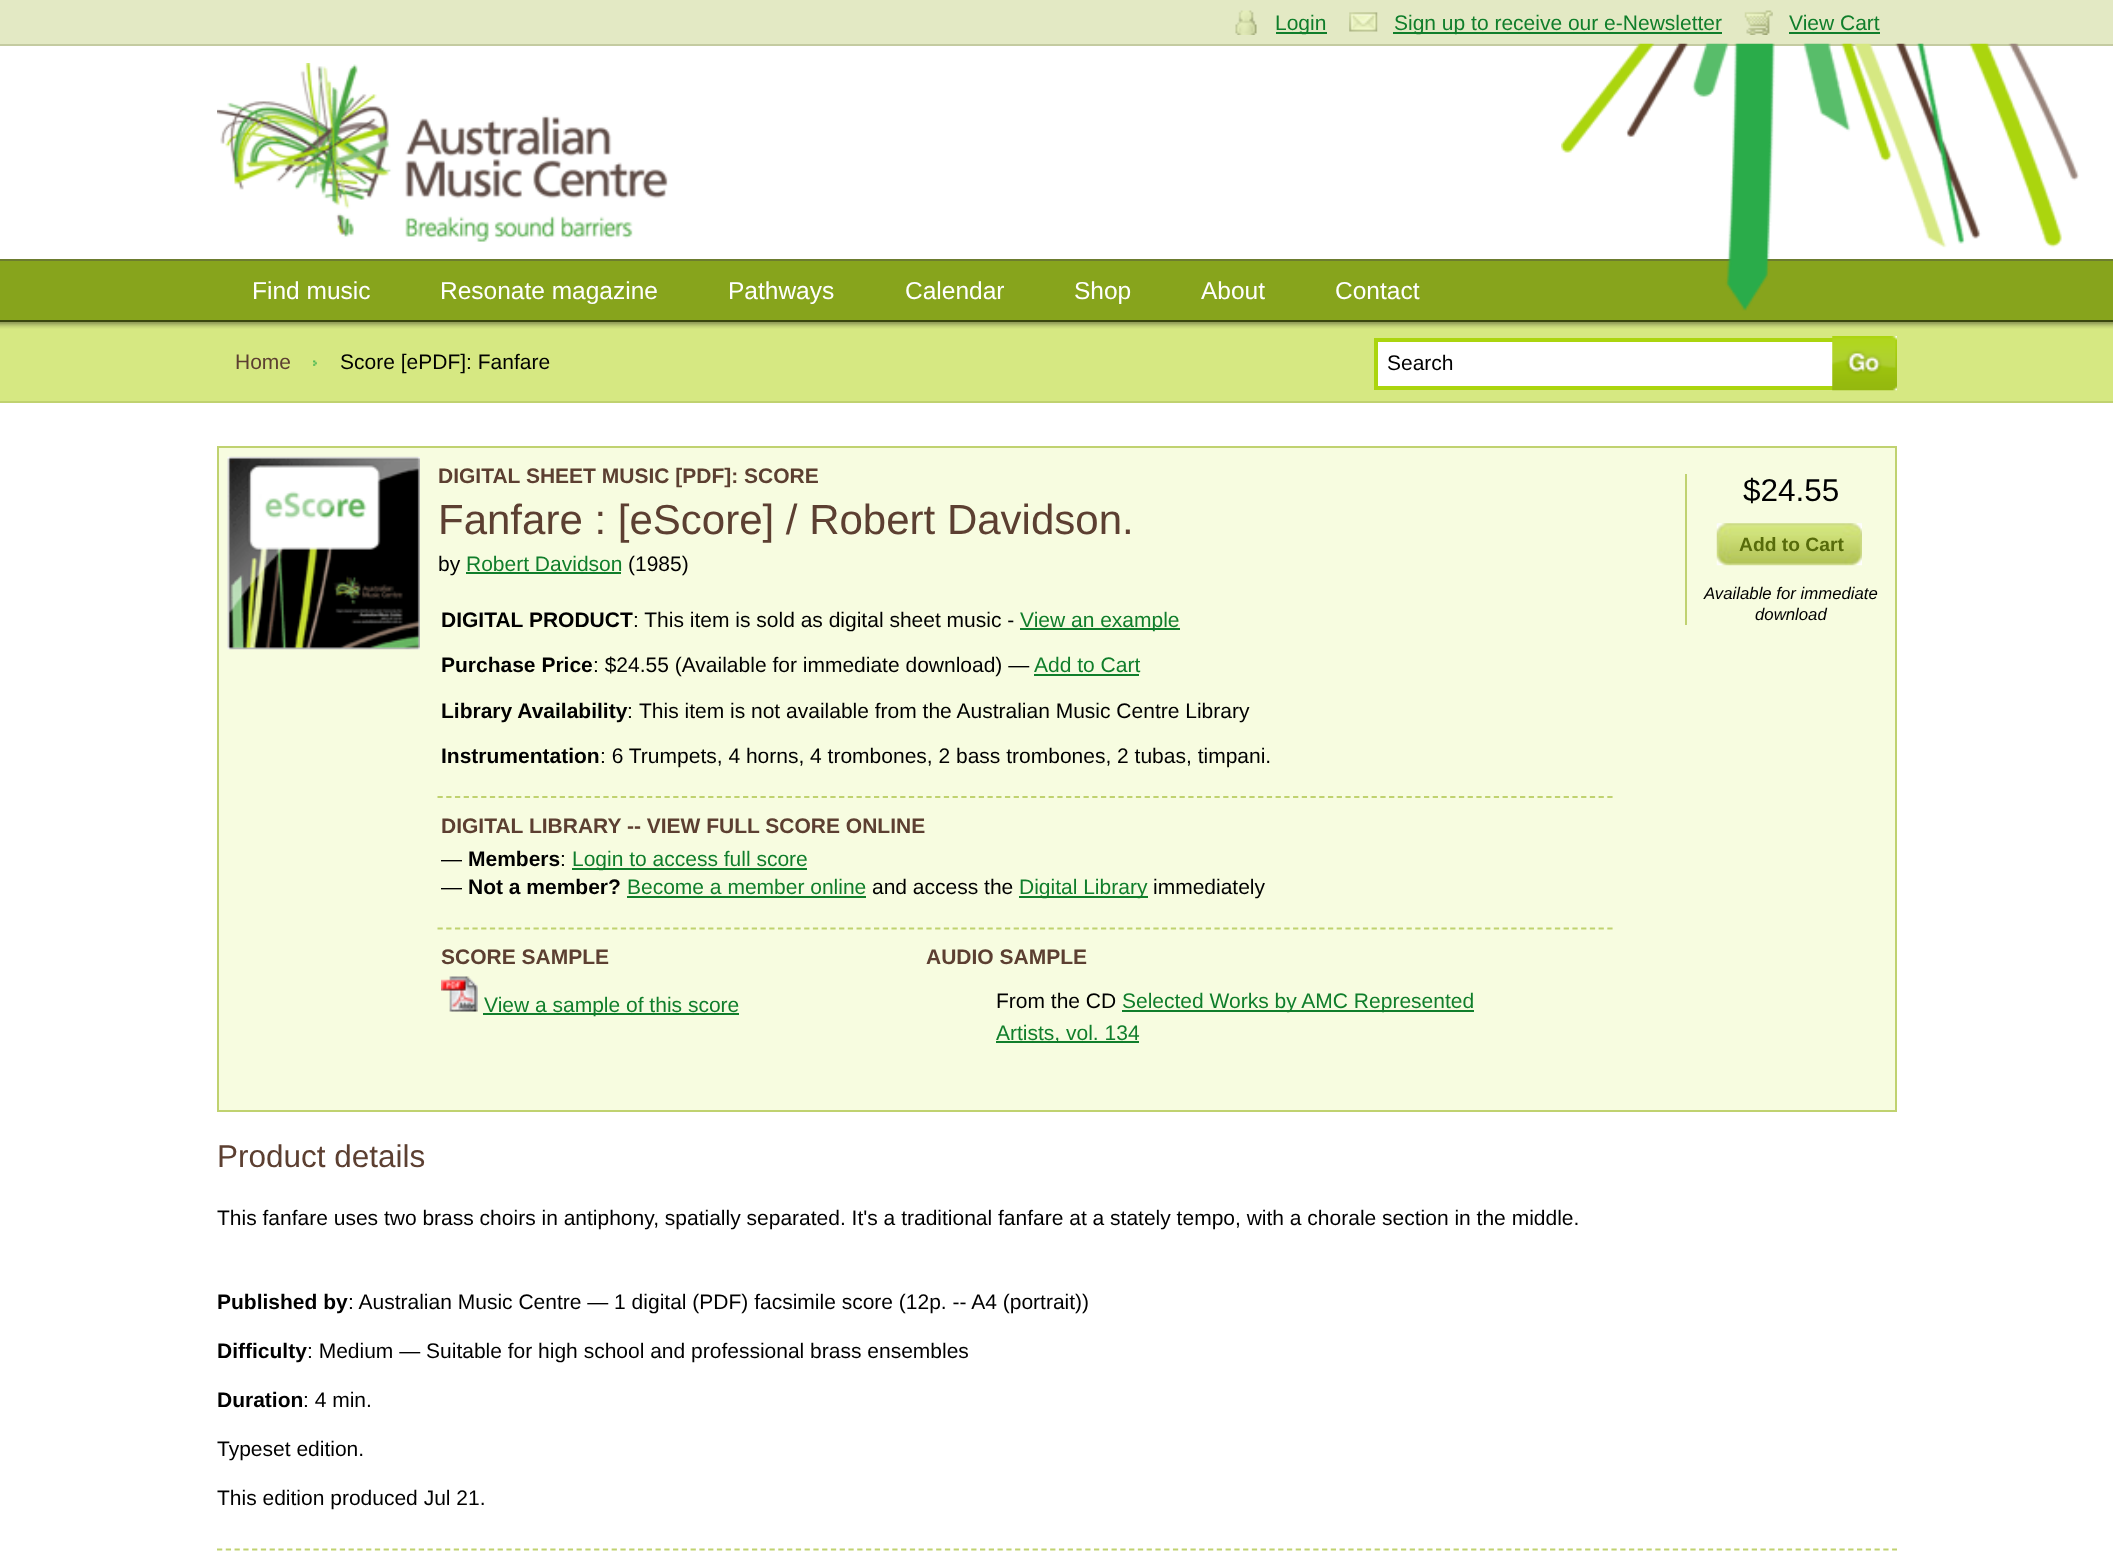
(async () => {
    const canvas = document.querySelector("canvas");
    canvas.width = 2113;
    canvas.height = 1559;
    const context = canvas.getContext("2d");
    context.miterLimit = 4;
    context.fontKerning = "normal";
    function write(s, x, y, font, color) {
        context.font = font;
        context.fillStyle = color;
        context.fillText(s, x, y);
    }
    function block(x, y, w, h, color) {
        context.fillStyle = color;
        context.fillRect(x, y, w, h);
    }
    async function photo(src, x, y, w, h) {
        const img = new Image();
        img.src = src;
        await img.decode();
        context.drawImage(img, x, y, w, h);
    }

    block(0, 0, 2113, 1559, "rgb(227, 233, 196)");
    block(0, 44, 2113, 2, "rgb(196, 203, 161)");
    await photo("media/1.png", 1235, 10, 22, 25);
    block(1276, 32, 51, 2, "rgb(16, 126, 43)");
    write("Login", 1275, 30, "21px Liberation Sans", "rgb(16, 126, 43)");
    await photo("media/2.png", 1349, 12, 29, 20);
    block(1393, 32, 329, 2, "rgb(16, 126, 43)");
    write("Sign up to receive our e-Newsletter", 1394, 30, "21px Liberation Sans", "rgb(16, 126, 43)");
    await photo("media/3.png", 1744, 10, 29, 25);
    write("View Cart", 1789, 30, "21px Liberation Sans", "rgb(16, 126, 43)");
    block(1789, 32, 91, 2, "rgb(16, 126, 43)");
    block(0, 46, 2113, 213, "rgb(255, 255, 255)");
    await photo("media/4.png", 217, 63, 451, 179);
    block(0, 261, 2113, 59, "rgb(135, 164, 28)");
    block(0, 259, 2113, 2, "rgb(108, 124, 47)");
    block(0, 320, 2113, 2, "rgb(58, 71, 14)");
    write("Find music", 252, 299, "24.5px Liberation Sans", "rgb(255, 255, 255)");
    write("Resonate magazine", 440, 299, "24.5px Liberation Sans", "rgb(255, 255, 255)");
    write("Pathways", 728, 299, "24.5px Liberation Sans", "rgb(255, 255, 255)");
    write("Calendar", 905, 299, "24.5px Liberation Sans", "rgb(255, 255, 255)");
    write("Shop", 1074, 299, "24.5px Liberation Sans", "rgb(255, 255, 255)");
    write("About", 1201, 299, "24.5px Liberation Sans", "rgb(255, 255, 255)");
    write("Contact", 1335, 299, "24.5px Liberation Sans", "rgb(255, 255, 255)");
    block(0, 329, 2113, 72, "rgb(214, 232, 130)");
    await photo("media/5.png", 0, 322, 2113, 7);
    block(0, 401, 2113, 2, "rgb(192, 210, 112)");
    write("Home", 235, 369, "21px Liberation Sans", "rgb(92, 63, 49)");
    await photo("media/6.png", 313, 360, 4, 6);
    write("Score [ePDF]: Fanfare", 340, 369, "21px Liberation Sans", "rgb(0, 0, 0)");
    block(1378, 342, 455, 44, "rgb(255, 255, 255)");
    context.strokeStyle = "rgb(171, 213, 14)";
    context.lineWidth = 4;
    context.strokeRect(1376, 340, 461, 48);
    write("Search", 1387, 370, "21px Liberation Sans", "rgb(0, 0, 0)");
    await photo("media/7.png", 1832, 336, 65, 55);
    block(0, 403, 2113, 1156, "rgb(255, 255, 255)");
    block(219, 448, 1676, 662, "rgb(247, 252, 224)");
    block(217, 446, 1680, 2, "rgb(192, 210, 112)");
    block(1895, 446, 2, 665, "rgb(192, 210, 112)");
    block(217, 1110, 1680, 2, "rgb(192, 210, 112)");
    block(217, 446, 2, 665, "rgb(192, 210, 112)");
    await photo("media/8.png", 227, 456, 193, 194);
    write("DIGITAL SHEET MUSIC [PDF]: SCORE", 438, 483, "bold 21px Liberation Sans", "rgb(92, 63, 49)");
    write("Fanfare : [eScore] / Robert Davidson.", 438, 534, "42px Liberation Sans", "rgb(92, 63, 49)");
    write("by", 438, 571, "21px Liberation Sans", "rgb(0, 0, 0)");
    write("Robert Davidson", 466, 571, "21px Liberation Sans", "rgb(16, 126, 43)");
    block(466, 572, 155, 2, "rgb(16, 126, 43)");
    write("(1985)", 628, 571, "21px Liberation Sans", "rgb(0, 0, 0)");
    write("DIGITAL PRODUCT", 441, 627, "bold 21px Liberation Sans", "rgb(0, 0, 0)");
    write(": This item is sold as digital sheet music -", 633, 627, "21px Liberation Sans", "rgb(0, 0, 0)");
    block(1020, 628, 160, 2, "rgb(16, 126, 43)");
    write("View an example", 1020, 627, "21px Liberation Sans", "rgb(16, 126, 43)");
    write("Purchase Price", 441, 672, "bold 21px Liberation Sans", "rgb(0, 0, 0)");
    write(": $24.55 (Available for immediate download) —", 593, 672, "21px Liberation Sans", "rgb(0, 0, 0)");
    write("Add to Cart", 1034, 672, "21px Liberation Sans", "rgb(16, 126, 43)");
    block(1034, 674, 105, 2, "rgb(16, 126, 43)");
    write("Library Availability", 441, 718, "bold 21px Liberation Sans", "rgb(0, 0, 0)");
    write(":", 627, 718, "21px Liberation Sans", "rgb(0, 0, 0)");
    write("This item is not available from the Australian Music Centre Library", 639, 718, "21px Liberation Sans", "rgb(0, 0, 0)");
    write("Instrumentation", 441, 763, "bold 21px Liberation Sans", "rgb(0, 0, 0)");
    write(": 6 Trumpets, 4 horns, 4 trombones, 2 bass trombones, 2 tubas, timpani.", 600, 763, "21px Liberation Sans", "rgb(0, 0, 0)");
    context.beginPath();
    context.moveTo(437.5, 797);
    context.lineTo(1613.5, 797);
    context.strokeStyle = "rgb(192, 210, 112)";
    context.lineWidth = 1.8;
    context.setLineDash([5.25, 3.48]);
    context.stroke();
    write("DIGITAL LIBRARY -- VIEW FULL SCORE ONLINE", 441, 833, "bold 21px Liberation Sans", "rgb(92, 63, 49)");
    write("—", 441, 866, "21px Liberation Sans", "rgb(0, 0, 0)");
    write("Members", 468, 866, "bold 21px Liberation Sans", "rgb(0, 0, 0)");
    write(":", 560, 866, "21px Liberation Sans", "rgb(0, 0, 0)");
    block(572, 868, 235, 2, "rgb(16, 126, 43)");
    write("Login to access full score", 572, 866, "21px Liberation Sans", "rgb(16, 126, 43)");
    write("—", 441, 894, "21px Liberation Sans", "rgb(0, 0, 0)");
    write("Not a member?", 468, 894, "bold 21px Liberation Sans", "rgb(0, 0, 0)");
    write("Become a member online", 627, 894, "21px Liberation Sans", "rgb(16, 126, 43)");
    block(627, 896, 239, 2, "rgb(16, 126, 43)");
    write("and access the", 872, 894, "21px Liberation Sans", "rgb(0, 0, 0)");
    block(1019, 896, 129, 2, "rgb(16, 126, 43)");
    write("Digital Library", 1019, 894, "21px Liberation Sans", "rgb(16, 126, 43)");
    write("immediately", 1153, 894, "21px Liberation Sans", "rgb(0, 0, 0)");
    context.beginPath();
    context.moveTo(437.5, 928.5);
    context.lineTo(1613.5, 928.5);
    context.stroke();
    write("SCORE SAMPLE", 441, 964, "bold 21px Liberation Sans", "rgb(92, 63, 49)");
    await photo("media/9.png", 441, 976, 37, 36);
    block(483, 1013, 256, 2, "rgb(16, 126, 43)");
    write("View a sample of this score", 484, 1012, "21px Liberation Sans", "rgb(16, 126, 43)");
    write("AUDIO SAMPLE", 926, 964, "bold 21px Liberation Sans", "rgb(92, 63, 49)");
    write("From the CD", 996, 1008, "21px Liberation Sans", "rgb(0, 0, 0)");
    block(1122, 1010, 352, 2, "rgb(16, 126, 43)");
    write("Selected Works by AMC Represented", 1122, 1008, "21px Liberation Sans", "rgb(16, 126, 43)");
    block(996, 1041, 143, 2, "rgb(16, 126, 43)");
    write("Artists, vol. 134", 996, 1040, "21px Liberation Sans", "rgb(16, 126, 43)");
    block(1685, 474, 2, 151, "rgb(192, 210, 112)");
    write("$24.55", 1743, 501, "31.5px Liberation Sans", "rgb(0, 0, 0)");
    await photo("media/10.png", 1716, 523, 146, 43);
    write("Add to Cart", 1739, 551, "bold 19.25px Liberation Sans", "rgb(87, 107, 11)");
    write("Available for immediate", 1704, 599, "italic 16.75px Liberation Sans", "rgb(0, 0, 0)");
    write("download", 1755, 620, "italic 16.75px Liberation Sans", "rgb(0, 0, 0)");
    context.beginPath();
    context.moveTo(217, 1549.5);
    context.lineTo(1897, 1549.5);
    context.setLineDash([5.25, 3.52]);
    context.stroke();
    write("Product details", 217, 1167, "31.5px Liberation Sans", "rgb(92, 63, 49)");
    write("This fanfare uses two brass choirs in antiphony, spatially separated. It's a traditional fanfare at a stately tempo, with a chorale section in the middle.", 217, 1225, "21px Liberation Sans", "rgb(0, 0, 0)");
    write("Published by", 217, 1309, "bold 21px Liberation Sans", "rgb(0, 0, 0)");
    write(": Australian Music Centre — 1 digital (PDF) facsimile score (12p. -- A4 (portrait))", 348, 1309, "21px Liberation Sans", "rgb(0, 0, 0)");
    write("Difficulty", 217, 1358, "bold 21px Liberation Sans", "rgb(0, 0, 0)");
    write(": Medium — Suitable for high school and professional brass ensembles", 307, 1358, "21px Liberation Sans", "rgb(0, 0, 0)");
    write("Duration", 217, 1407, "bold 21px Liberation Sans", "rgb(0, 0, 0)");
    write(": 4 min.", 303, 1407, "21px Liberation Sans", "rgb(0, 0, 0)");
    write("Typeset edition.", 217, 1456, "21px Liberation Sans", "rgb(0, 0, 0)");
    write("This edition produced Jul 21.", 217, 1505, "21px Liberation Sans", "rgb(0, 0, 0)");
    await photo("media/11.png", 1561, 43, 518, 268);
})();
